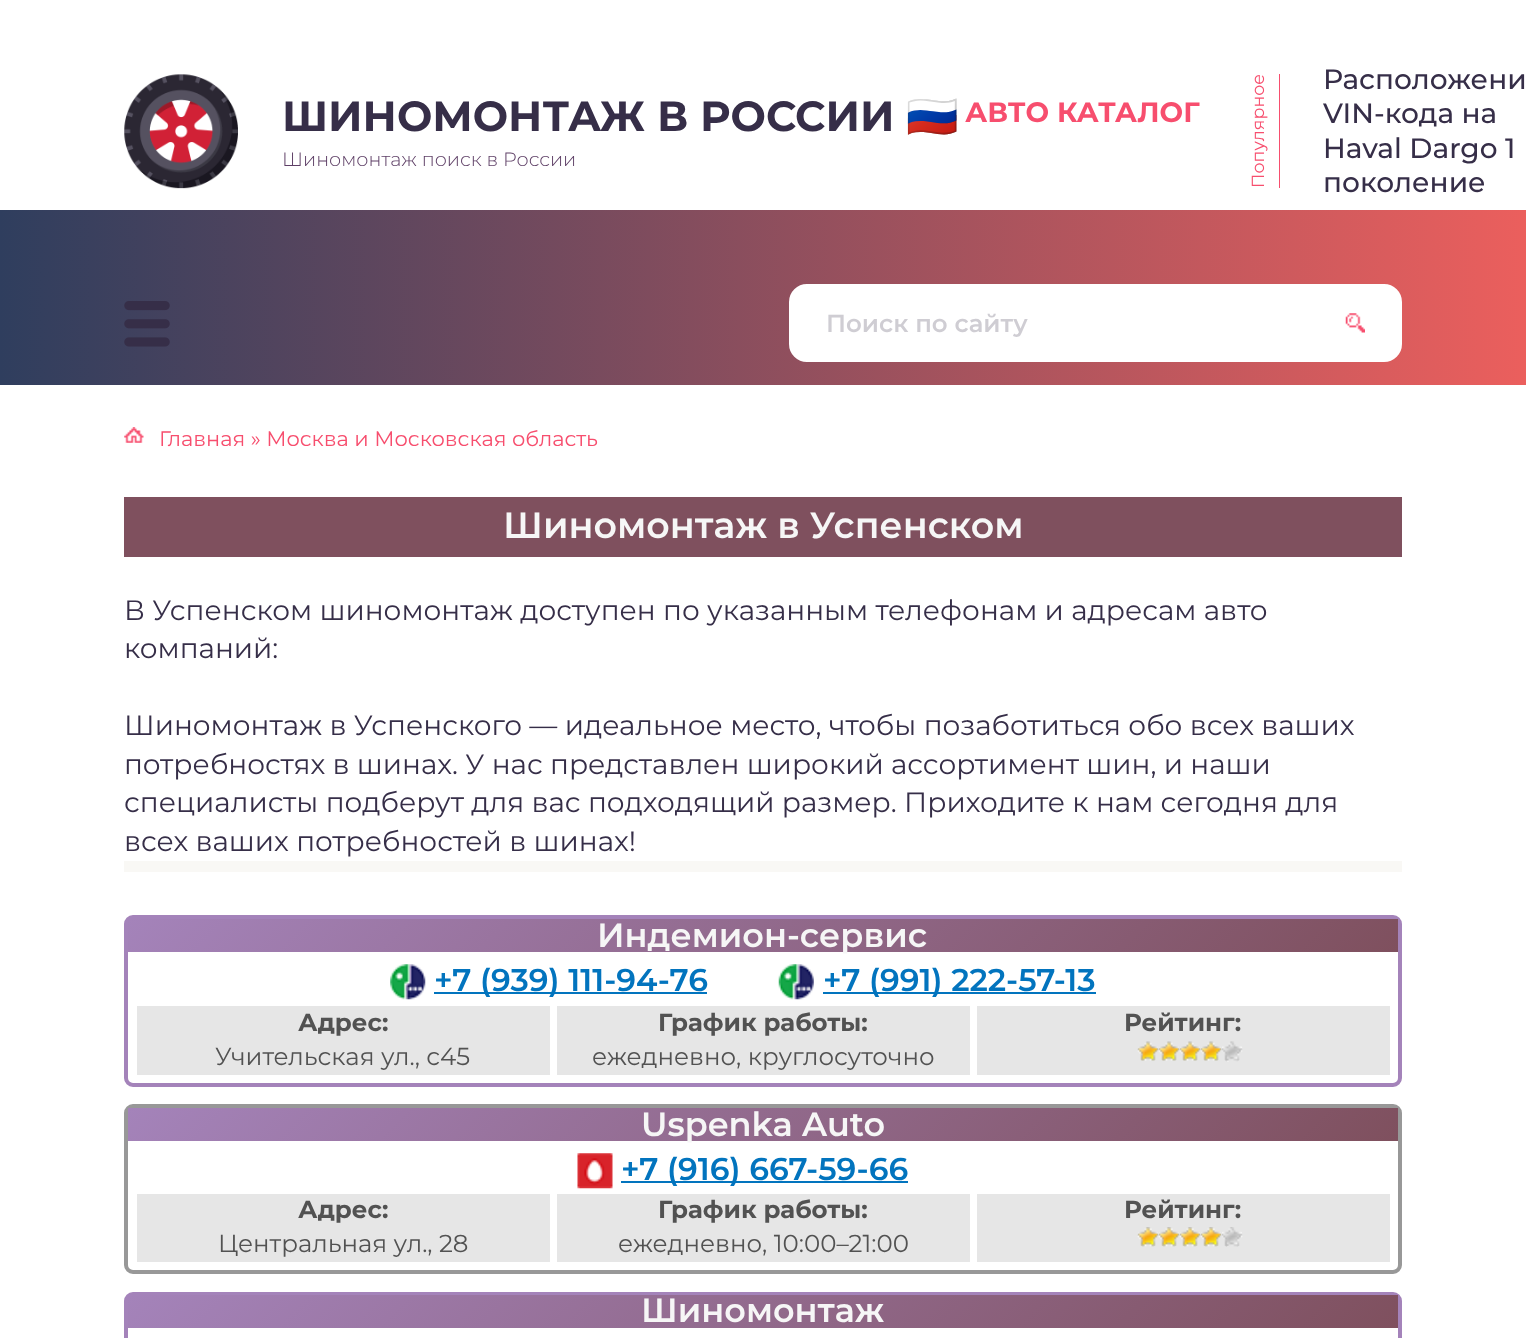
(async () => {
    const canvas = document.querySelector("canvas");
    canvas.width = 1526;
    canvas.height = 1338;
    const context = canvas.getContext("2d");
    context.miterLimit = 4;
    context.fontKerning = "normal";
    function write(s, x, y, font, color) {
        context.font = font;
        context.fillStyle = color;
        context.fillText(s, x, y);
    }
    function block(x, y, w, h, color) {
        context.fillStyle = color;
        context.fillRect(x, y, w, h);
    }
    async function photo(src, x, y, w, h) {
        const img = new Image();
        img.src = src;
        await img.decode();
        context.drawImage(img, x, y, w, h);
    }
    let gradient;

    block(0, 0, 1526, 1338, "rgb(255, 255, 255)");
    await photo("media/1.png", 124, 74, 114, 115);
    write("ШИНОМОНТАЖ В РОССИИ", 282, 131, "bold 42px Montserrat", "rgb(54, 46, 72)");
    write("🇷🇺", 906, 131, "bold 42px Noto Color Emoji", "rgb(54, 46, 72)");
    write("АВТО КАТАЛОГ", 965, 122, "bold 28px Montserrat", "rgb(247, 78, 110)");
    write("Шиномонтаж поиск в России", 282, 166, "300 19.25px Montserrat", "rgb(94, 63, 102)");
    block(1279, 74, 1, 114, "rgb(247, 78, 110)");
    context.font = "17.5px Montserrat";
    context.save();
    context.translate(1264, 188);
    context.rotate(-90 * Math.PI / 180);
    context.fillText("Популярное", 0, 0);
    context.restore();
    write("Расположени", 1323, 89, "500 28px Montserrat", "rgb(54, 46, 72)");
    write("VIN-кода на", 1323, 123, "500 28px Montserrat", "rgb(54, 46, 72)");
    write("Haval Dargo 1", 1323, 158, "500 28px Montserrat", "rgb(54, 46, 72)");
    write("поколение", 1323, 192, "500 28px Montserrat", "rgb(54, 46, 72)");
    gradient = context.createLinearGradient(0, 298, 1526, 297);
    gradient.addColorStop(0, "rgb(47, 62, 94)");
    gradient.addColorStop(1, "rgb(235, 95, 93)");
    context.fillStyle = gradient;
    context.fillRect(0, 210, 1526, 175);
    context.fillStyle = "rgb(255, 255, 255)";
    context.beginPath();
    context.roundRect(790, 285, 611, 76, 17);
    context.fill();
    context.strokeStyle = "rgb(255, 255, 255)";
    context.lineWidth = 2;
    context.stroke();
    write("Поиск по сайту", 826, 332, "600 24.5px Montserrat", "rgb(207, 205, 211)");
    await photo("media/2.png", 1345, 313, 20, 20);
    await photo("media/3.png", 124, 301, 46, 46);
    await photo("media/4.png", 124, 427, 20, 16);
    write("Главная » Москва и Московская область", 159, 446, "21px Montserrat", "rgb(247, 78, 110)");
    block(124, 497, 1278, 60, "rgb(127, 80, 94)");
    write("Шиномонтаж в Успенском", 503, 538, "600 36.4px Montserrat", "rgb(246, 246, 246)");
    write("В Успенском шиномонтаж доступен по указанным телефонам и адресам авто", 124, 620, "28px Montserrat", "rgb(54, 46, 72)");
    write("компаний:", 124, 658, "28px Montserrat", "rgb(54, 46, 72)");
    write("Шиномонтаж в Успенского — идеальное место, чтобы позаботиться обо всех ваших", 124, 735, "28px Montserrat", "rgb(54, 46, 72)");
    write("потребностях в шинах. У нас представлен широкий ассортимент шин, и наши", 124, 774, "28px Montserrat", "rgb(54, 46, 72)");
    write("специалисты подберут для вас подходящий размер. Приходите к нам сегодня для", 124, 812, "28px Montserrat", "rgb(54, 46, 72)");
    write("всех ваших потребностей в шинах!", 124, 851, "28px Montserrat", "rgb(54, 46, 72)");
    block(124, 861, 1278, 11, "rgb(249, 248, 245)");
    context.beginPath();
    context.roundRect(126, 917, 1274, 168, 7);
    context.strokeStyle = "rgb(164, 131, 186)";
    context.lineWidth = 4;
    context.stroke();
    gradient = context.createLinearGradient(437, 609, 1089, 1261);
    gradient.addColorStop(0, "rgb(164, 131, 186)");
    gradient.addColorStop(1, "rgb(127, 80, 94)");
    context.fillStyle = gradient;
    context.fillRect(128, 919, 1270, 33);
    write("Индемион-сервис", 597, 947, "600 33.5px Montserrat", "rgb(246, 246, 246)");
    await photo("media/5.png", 390, 964, 36, 36);
    block(434, 992, 273, 2, "rgb(2, 116, 190)");
    write("+7 (939) 111-94-76", 434, 991, "600 31.5px Montserrat", "rgb(2, 116, 190)");
    await photo("media/6.png", 778, 964, 36, 36);
    block(823, 992, 273, 2, "rgb(2, 116, 190)");
    write("+7 (991) 222-57-13", 823, 991, "600 31.5px Montserrat", "rgb(2, 116, 190)");
    block(137, 1006, 413, 69, "rgb(230, 230, 230)");
    write("Адрес:", 298, 1031, "bold 24.5px Montserrat", "rgb(82, 82, 82)");
    write("Учительская ул., с45", 215, 1065, "24.5px Montserrat", "rgb(82, 82, 82)");
    block(557, 1006, 413, 69, "rgb(230, 230, 230)");
    write("График работы:", 658, 1031, "bold 24.5px Montserrat", "rgb(82, 82, 82)");
    write("ежедневно, круглосуточно", 592, 1065, "24.5px Montserrat", "rgb(82, 82, 82)");
    block(977, 1006, 413, 69, "rgb(230, 230, 230)");
    write("Рейтинг:", 1124, 1031, "bold 24.5px Montserrat", "rgb(82, 82, 82)");
    await photo("media/7.png", 1137, 1041, 22, 20);
    await photo("media/8.png", 1158, 1041, 22, 20);
    await photo("media/9.png", 1179, 1041, 22, 20);
    await photo("media/9.png", 1200, 1041, 22, 20);
    await photo("media/10.png", 1221, 1041, 22, 21);
    context.beginPath();
    context.roundRect(126, 1106, 1274, 166, 7);
    context.strokeStyle = "rgb(152, 152, 152)";
    context.stroke();
    gradient = context.createLinearGradient(437, 798, 1089, 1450);
    gradient.addColorStop(0, "rgb(164, 131, 186)");
    gradient.addColorStop(1, "rgb(127, 80, 94)");
    context.fillStyle = gradient;
    context.fillRect(128, 1108, 1270, 33);
    write("Uspenka Auto", 641, 1136, "600 33.5px Montserrat", "rgb(246, 246, 246)");
    await photo("media/11.png", 577, 1153, 36, 36);
    block(621, 1181, 287, 2, "rgb(2, 116, 190)");
    write("+7 (916) 667-59-66", 621, 1180, "600 31.5px Montserrat", "rgb(2, 116, 190)");
    block(137, 1194, 413, 68, "rgb(230, 230, 230)");
    write("Адрес:", 298, 1218, "bold 24.5px Montserrat", "rgb(82, 82, 82)");
    write("Центральная ул., 28", 218, 1252, "24.5px Montserrat", "rgb(82, 82, 82)");
    block(557, 1194, 413, 68, "rgb(230, 230, 230)");
    write("График работы:", 658, 1218, "bold 24.5px Montserrat", "rgb(82, 82, 82)");
    write("ежедневно, 10:00–21:00", 618, 1252, "24.5px Montserrat", "rgb(82, 82, 82)");
    block(977, 1194, 413, 68, "rgb(230, 230, 230)");
    write("Рейтинг:", 1124, 1218, "bold 24.5px Montserrat", "rgb(82, 82, 82)");
    await photo("media/12.png", 1137, 1227, 22, 20);
    await photo("media/13.png", 1158, 1227, 22, 20);
    await photo("media/14.png", 1179, 1227, 22, 20);
    await photo("media/14.png", 1200, 1227, 22, 20);
    await photo("media/15.png", 1222, 1227, 21, 20);
    context.beginPath();
    context.roundRect(126, 1294, 1274, 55, 7);
    context.strokeStyle = "rgb(164, 131, 186)";
    context.stroke();
    gradient = context.createLinearGradient(437, 986, 1089, 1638);
    gradient.addColorStop(0, "rgb(164, 131, 186)");
    gradient.addColorStop(1, "rgb(127, 80, 94)");
    context.fillStyle = gradient;
    context.fillRect(128, 1295, 1270, 33);
    write("Шиномонтаж", 641, 1322, "600 33.5px Montserrat", "rgb(246, 246, 246)");
})();
